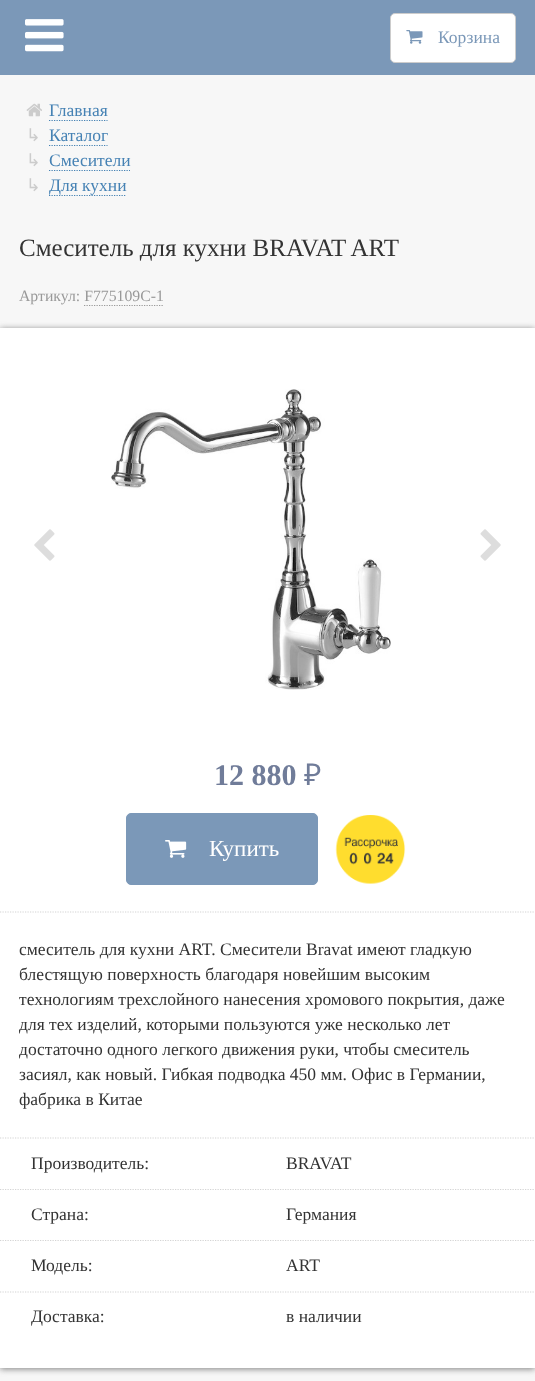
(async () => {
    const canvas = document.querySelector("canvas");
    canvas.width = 535;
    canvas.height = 1381;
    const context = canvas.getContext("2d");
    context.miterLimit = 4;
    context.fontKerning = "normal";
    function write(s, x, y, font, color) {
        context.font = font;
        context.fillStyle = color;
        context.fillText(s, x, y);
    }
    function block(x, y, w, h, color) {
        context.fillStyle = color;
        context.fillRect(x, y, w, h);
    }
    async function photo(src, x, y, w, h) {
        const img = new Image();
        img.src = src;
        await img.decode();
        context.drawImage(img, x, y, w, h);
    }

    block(0, 0, 535, 1381, "rgb(247, 247, 247)");
    block(0, 0, 535, 75, "rgb(123, 152, 184)");
    await photo("media/1.png", 25, 19, 39, 33);
    context.fillStyle = "rgb(255, 255, 255)";
    context.beginPath();
    context.roundRect(390.5, 13.5, 125, 49, 4.5);
    context.fill();
    context.strokeStyle = "rgb(204, 204, 204)";
    context.stroke();
    await photo("media/2.png", 406, 30, 17, 14);
    write("Корзина", 438, 43, "17.5px Liberation Serif", "rgb(123, 152, 184)");
    await photo("media/3.png", 26, 103, 16, 14);
    write("Главная", 49, 116, "17.5px Liberation Serif", "rgb(70, 130, 180)");
    context.beginPath();
    context.moveTo(49, 120.5);
    context.lineTo(107.5, 120.5);
    context.strokeStyle = "rgb(70, 130, 180)";
    context.lineWidth = 1.2;
    context.setLineDash([1.25, 1.25]);
    context.stroke();
    write("↳", 26, 141, "17.5px DejaVu Sans", "rgb(204, 204, 204)");
    write("Каталог", 49, 141, "17.5px Liberation Serif", "rgb(70, 130, 180)");
    context.beginPath();
    context.moveTo(49, 145.5);
    context.lineTo(107.5, 145.5);
    context.stroke();
    write("↳", 26, 166, "17.5px DejaVu Sans", "rgb(204, 204, 204)");
    write("Смесители", 49, 166, "17.5px Liberation Serif", "rgb(70, 130, 180)");
    context.beginPath();
    context.moveTo(49, 170.5);
    context.lineTo(130, 170.5);
    context.stroke();
    write("↳", 26, 191, "17.5px DejaVu Sans", "rgb(204, 204, 204)");
    context.beginPath();
    context.moveTo(49, 195.5);
    context.lineTo(126, 195.5);
    context.stroke();
    write("Для кухни", 49, 191, "17.5px Liberation Serif", "rgb(70, 130, 180)");
    write("Смеситель для кухни BRAVAT ART", 19, 256, "25px Liberation Serif", "rgb(51, 51, 51)");
    write("Артикул: F775109C-1", 19, 301, "15.75px Liberation Serif", "rgb(153, 153, 153)");
    context.beginPath();
    context.moveTo(84, 305.5);
    context.lineTo(164, 305.5);
    context.strokeStyle = "rgb(153, 153, 153)";
    context.stroke();
    context.fillStyle = "rgb(128, 128, 128)";
    context.filter = "blur(3px)";
    context.beginPath();
    context.rect(0, 329, 535, 1040);
    context.fill();
    context.filter = "none";
    block(0, 328, 535, 1040, "rgb(255, 255, 255)");
    await photo("media/4.png", 34, 529, 21, 32);
    await photo("media/5.png", 111, 389, 280, 301);
    await photo("media/6.png", 480, 529, 21, 32);
    context.beginPath();
    context.moveTo(0, 912);
    context.lineTo(535, 912);
    context.strokeStyle = "rgb(212, 212, 212)";
    context.stroke();
    write("12 880", 214, 785, "bold 30px Liberation Serif", "rgb(112, 124, 153)");
    write("₽", 304, 785, "30px Noto Sans", "rgb(112, 124, 153)");
    context.fillStyle = "rgb(123, 152, 184)";
    context.beginPath();
    context.roundRect(126.5, 813.5, 191, 71, 4.5);
    context.fill();
    context.strokeStyle = "rgb(123, 152, 184)";
    context.lineWidth = 1;
    context.setLineDash([]);
    context.stroke();
    await photo("media/7.png", 165, 840, 22, 18);
    write("Купить", 209, 856, "23px Liberation Serif", "rgb(255, 255, 255)");
    await photo("media/8.png", 335, 815, 71, 69);
    write("смеситель для кухни ART. Смесители Bravat имеют гладкую", 19, 955, "17.5px Liberation Serif", "rgb(51, 51, 51)");
    write("блестящую поверхность благодаря новейшим высоким", 19, 980, "17.5px Liberation Serif", "rgb(51, 51, 51)");
    write("технологиям трехслойного нанесения хромового покрытия, даже", 19, 1005, "17.5px Liberation Serif", "rgb(51, 51, 51)");
    write("для тех изделий, которыми пользуются уже несколько лет", 19, 1030, "17.5px Liberation Serif", "rgb(51, 51, 51)");
    write("достаточно одного легкого движения руки, чтобы смеситель", 19, 1055, "17.5px Liberation Serif", "rgb(51, 51, 51)");
    write("засиял, как новый. Гибкая подводка 450 мм. Офис в Германии,", 19, 1080, "17.5px Liberation Serif", "rgb(51, 51, 51)");
    write("фабрика в Китае", 19, 1105, "17.5px Liberation Serif", "rgb(51, 51, 51)");
    context.beginPath();
    context.moveTo(0, 1138);
    context.lineTo(535, 1138);
    context.strokeStyle = "rgb(212, 212, 212)";
    context.lineWidth = 1.2;
    context.setLineDash([1.25, 1.25]);
    context.stroke();
    write("Производитель:", 31, 1169, "17.5px Liberation Serif", "rgb(51, 51, 51)");
    write("BRAVAT", 286, 1169, "17.5px Liberation Serif", "rgb(51, 51, 51)");
    context.beginPath();
    context.moveTo(0, 1189.5);
    context.lineTo(535, 1189.5);
    context.stroke();
    write("Страна:", 31, 1220, "17.5px Liberation Serif", "rgb(51, 51, 51)");
    write("Германия", 286, 1220, "17.5px Liberation Serif", "rgb(51, 51, 51)");
    context.beginPath();
    context.moveTo(0, 1240.5);
    context.lineTo(535, 1240.5);
    context.stroke();
    write("Модель:", 31, 1271, "17.5px Liberation Serif", "rgb(51, 51, 51)");
    write("ART", 286, 1271, "17.5px Liberation Serif", "rgb(51, 51, 51)");
    context.beginPath();
    context.moveTo(0, 1292);
    context.lineTo(535, 1292);
    context.stroke();
    write("Доставка:", 31, 1322, "17.5px Liberation Serif", "rgb(51, 51, 51)");
    write("в наличии", 286, 1322, "17.5px Liberation Serif", "rgb(51, 51, 51)");
})();
